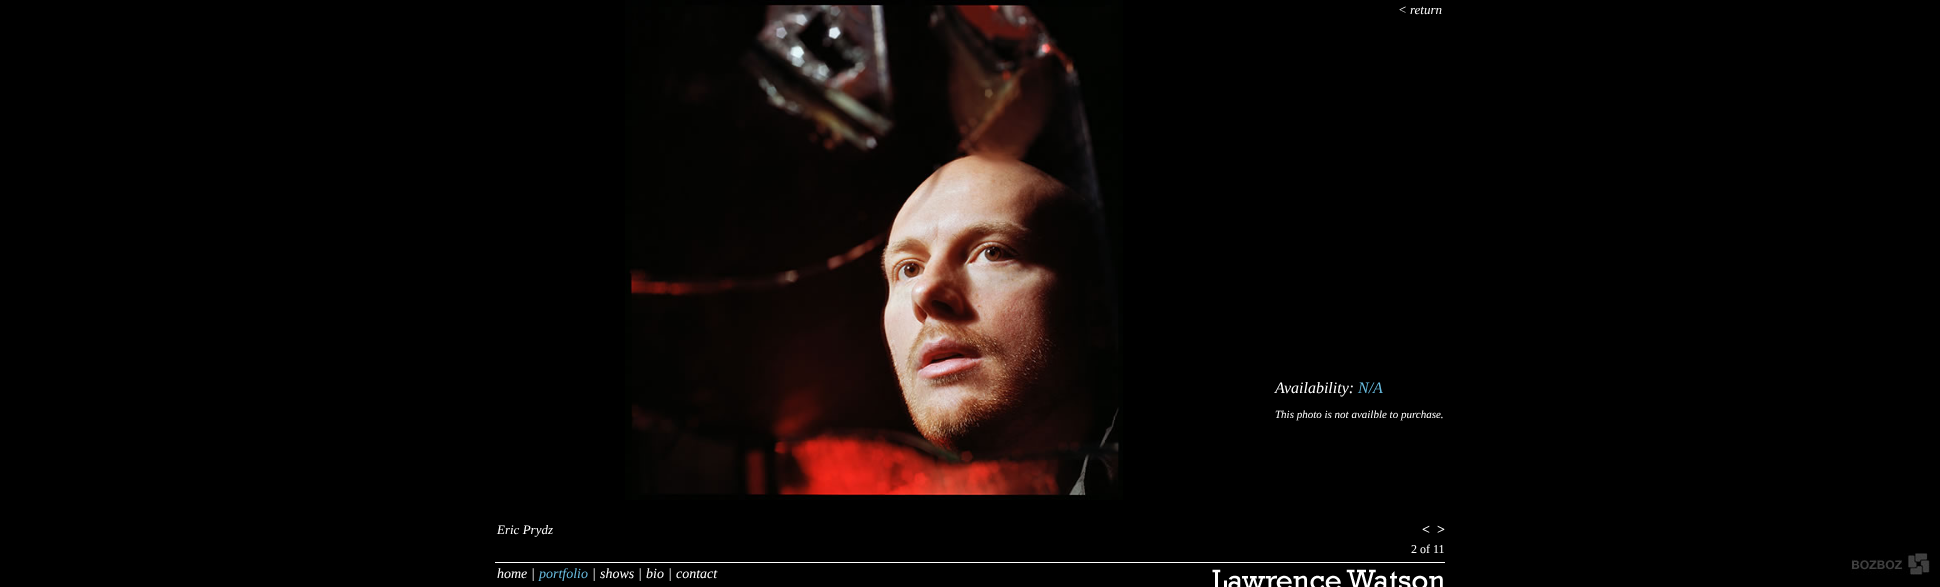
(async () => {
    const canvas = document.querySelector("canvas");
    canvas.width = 1940;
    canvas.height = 587;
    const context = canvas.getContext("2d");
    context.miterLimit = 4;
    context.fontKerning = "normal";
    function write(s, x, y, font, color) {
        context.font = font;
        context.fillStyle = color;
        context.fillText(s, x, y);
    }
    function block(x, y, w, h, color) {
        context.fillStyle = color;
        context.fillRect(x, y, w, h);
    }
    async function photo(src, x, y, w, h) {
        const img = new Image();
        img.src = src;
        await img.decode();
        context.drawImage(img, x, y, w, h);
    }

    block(0, 0, 1940, 587, "rgb(0, 0, 0)");
    await photo("media/1.png", 625, 0, 498, 500);
    write("< return", 1398, 14, "italic 13px Liberation Serif", "rgb(255, 255, 255)");
    write("Availability:", 1275, 393, "italic 16px Liberation Serif", "rgb(255, 255, 255)");
    write("N/A", 1358, 393, "italic 16px Liberation Serif", "rgb(104, 187, 222)");
    write("This photo is not availble to purchase.", 1275, 418, "italic 11px Liberation Serif", "rgb(255, 255, 255)");
    write("Eric Prydz", 497, 534, "italic 13px Liberation Serif", "rgb(255, 255, 255)");
    write("<", 1422, 534, "bold 14px Liberation Serif", "rgb(255, 255, 255)");
    write(">", 1437, 534, "bold 14px Liberation Serif", "rgb(255, 255, 255)");
    write("2 of 11", 1411, 553, "12px Liberation Serif", "rgb(255, 255, 255)");
    block(495, 562, 950, 1, "rgb(255, 255, 255)");
    write("home", 497, 578, "italic 14px Liberation Serif", "rgb(255, 255, 255)");
    write("|", 531, 578, "italic 14px Liberation Serif", "rgb(255, 255, 255)");
    write("portfolio", 539, 578, "italic 14px Liberation Serif", "rgb(104, 187, 222)");
    write("|", 592, 578, "italic 14px Liberation Serif", "rgb(255, 255, 255)");
    write("shows", 600, 578, "italic 14px Liberation Serif", "rgb(255, 255, 255)");
    write("|", 638, 578, "italic 14px Liberation Serif", "rgb(255, 255, 255)");
    write("bio", 646, 578, "italic 14px Liberation Serif", "rgb(255, 255, 255)");
    write("|", 668, 578, "italic 14px Liberation Serif", "rgb(255, 255, 255)");
    write("contact", 676, 578, "italic 14px Liberation Serif", "rgb(255, 255, 255)");
    await photo("media/2.png", 1212, 569, 231, 18);
    await photo("media/3.png", 1851, 553, 79, 22);
})();
